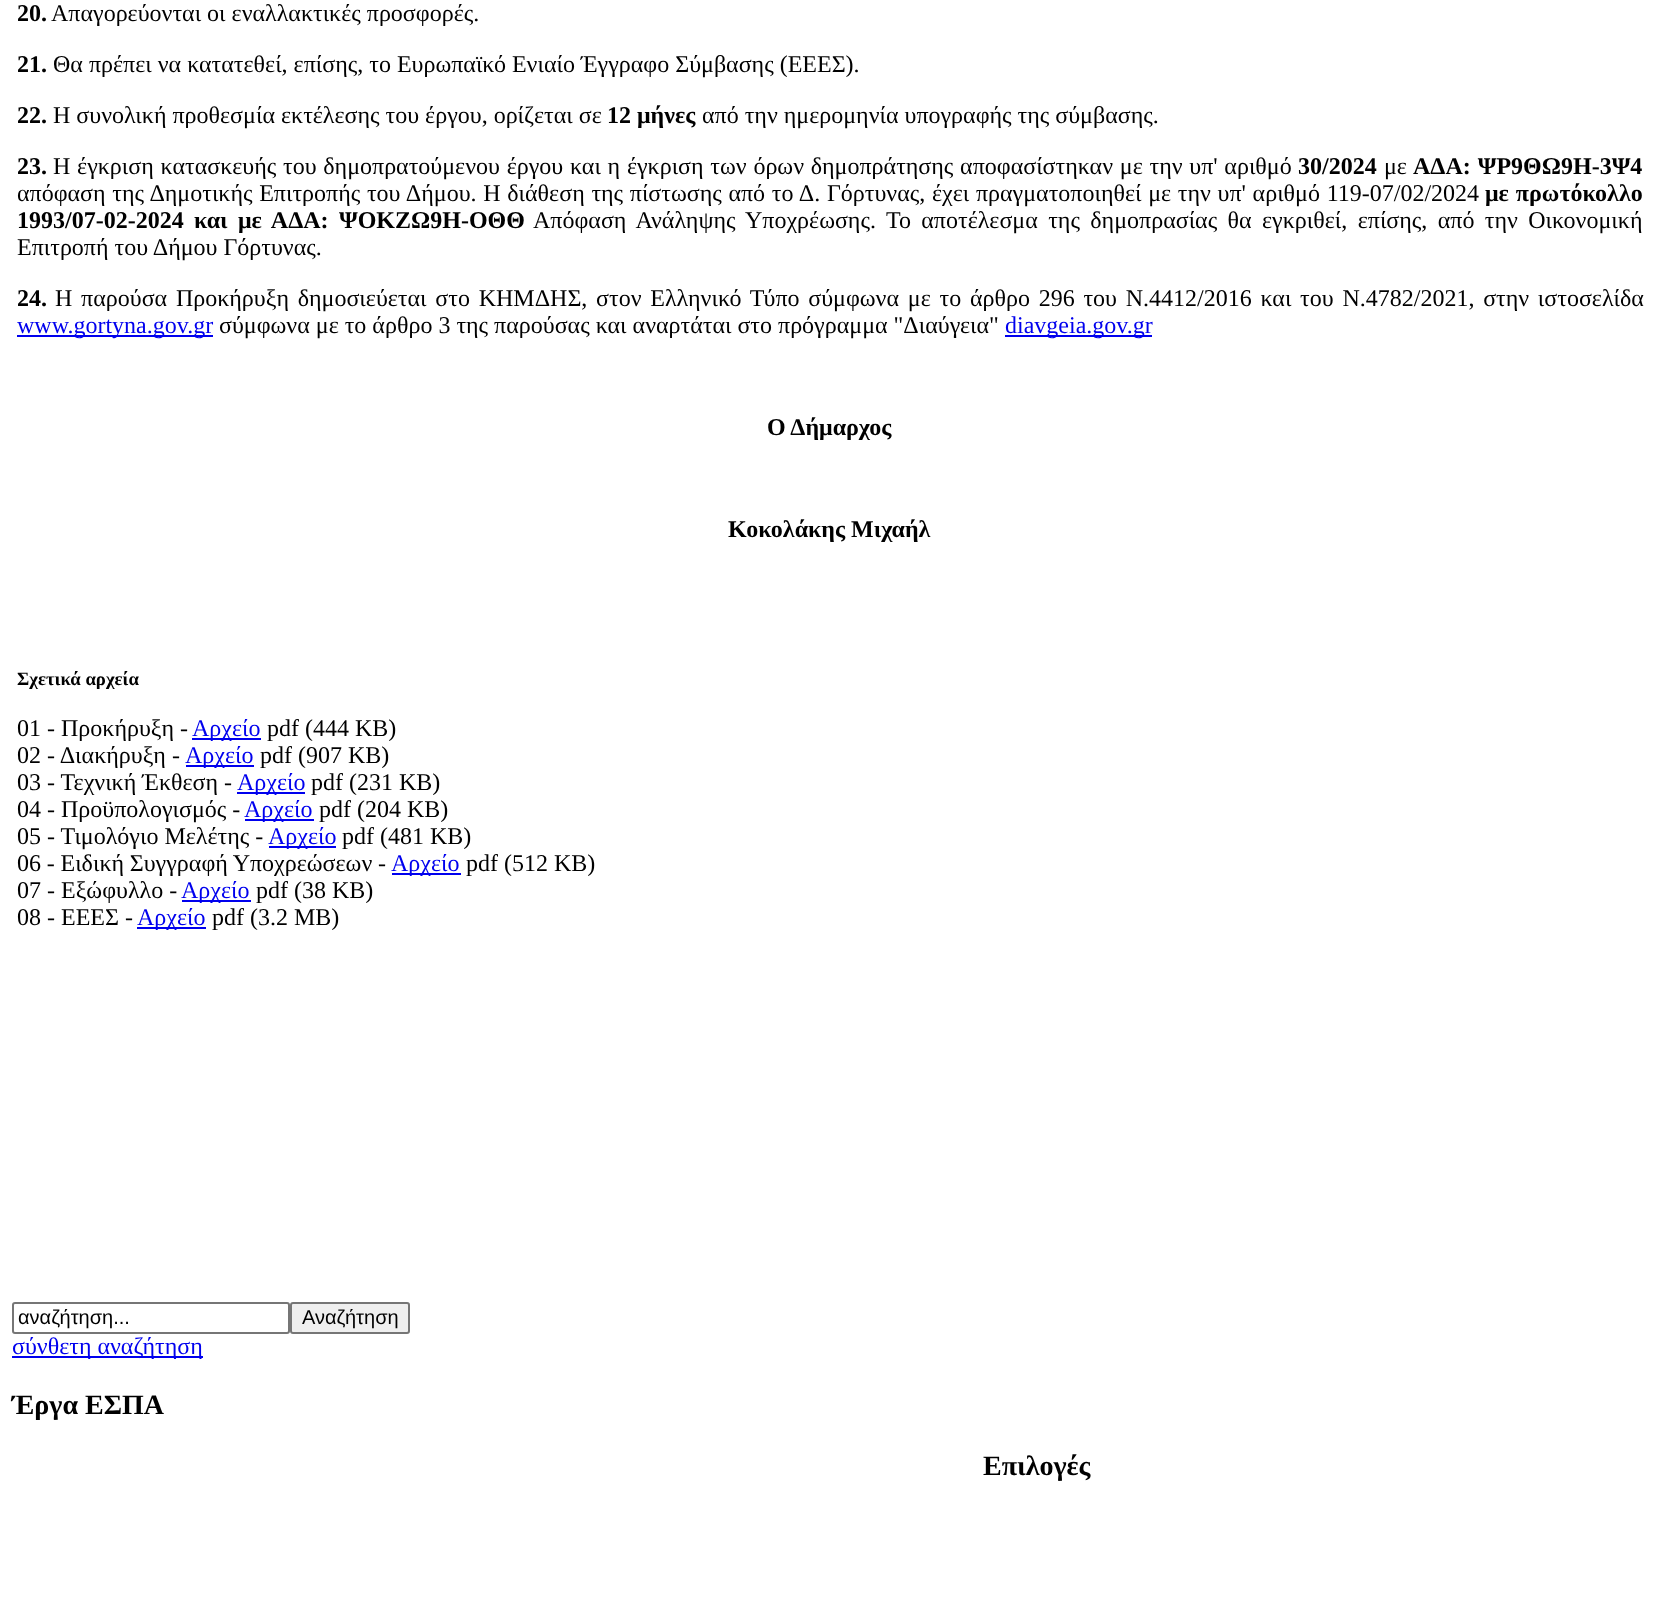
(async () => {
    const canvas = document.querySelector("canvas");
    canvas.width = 1659;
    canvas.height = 1607;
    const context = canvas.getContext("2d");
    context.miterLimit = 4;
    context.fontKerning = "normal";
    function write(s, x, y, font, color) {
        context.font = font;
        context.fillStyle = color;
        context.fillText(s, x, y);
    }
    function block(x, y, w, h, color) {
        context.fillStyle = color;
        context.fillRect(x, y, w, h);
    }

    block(0, 0, 1659, 1607, "rgb(255, 255, 255)");
    write("20.", 17, 21, "bold 24px Liberation Serif", "rgb(0, 0, 0)");
    write("Απαγορεύονται οι εναλλακτικές προσφορές.", 51, 21, "24px Liberation Serif", "rgb(0, 0, 0)");
    write("21.", 17, 72, "bold 24px Liberation Serif", "rgb(0, 0, 0)");
    write("Θα πρέπει να κατατεθεί, επίσης, το Ευρωπαϊκό Ενιαίο Έγγραφο Σύμβασης (ΕΕΕΣ).", 53, 72, "24px Liberation Serif", "rgb(0, 0, 0)");
    write("22.", 17, 123, "bold 24px Liberation Serif", "rgb(0, 0, 0)");
    write("Η συνολική προθεσμία εκτέλεσης του έργου, ορίζεται σε", 53, 123, "24px Liberation Serif", "rgb(0, 0, 0)");
    write("12 μήνες", 607, 123, "bold 24px Liberation Serif", "rgb(0, 0, 0)");
    write("από την ημερομηνία υπογραφής της σύμβασης.", 702, 123, "24px Liberation Serif", "rgb(0, 0, 0)");
    write("23.", 17, 174, "bold 24px Liberation Serif", "rgb(0, 0, 0)");
    context.wordSpacing = "0.75px";
    write("Η έγκριση κατασκευής του δημοπρατούμενου έργου και η έγκριση των όρων δημοπράτησης αποφασίστηκαν με την υπ' αριθμό", 53, 174, "24px Liberation Serif", "rgb(0, 0, 0)");
    context.wordSpacing = "0px";
    write("30/2024", 1298, 174, "bold 24px Liberation Serif", "rgb(0, 0, 0)");
    write("με", 1384, 174, "24px Liberation Serif", "rgb(0, 0, 0)");
    context.wordSpacing = "1px";
    write("ΑΔΑ: ΨΡ9ΘΩ9Η-3Ψ4", 1413, 174, "bold 24px Liberation Serif", "rgb(0, 0, 0)");
    context.wordSpacing = "0.7px";
    write("απόφαση της Δημοτικής Επιτροπής του Δήμου. Η διάθεση της πίστωσης από το Δ. Γόρτυνας, έχει πραγματοποιηθεί με την υπ' αριθμό 119-07/02/2024", 17, 201, "24px Liberation Serif", "rgb(0, 0, 0)");
    context.wordSpacing = "1px";
    write("με πρωτόκολλο", 1485, 201, "bold 24px Liberation Serif", "rgb(0, 0, 0)");
    context.wordSpacing = "4.4px";
    write("1993/07-02-2024 και με ΑΔΑ: ΨΟΚΖΩ9Η-ΟΘΘ", 17, 228, "bold 24px Liberation Serif", "rgb(0, 0, 0)");
    write("Απόφαση Ανάληψης Υποχρέωσης. Το αποτέλεσμα της δημοπρασίας θα εγκριθεί, επίσης, από την Οικονομική", 533, 228, "24px Liberation Serif", "rgb(0, 0, 0)");
    context.wordSpacing = "0px";
    write("Επιτροπή του Δήμου Γόρτυνας.", 17, 255, "24px Liberation Serif", "rgb(0, 0, 0)");
    write("24.", 17, 306, "bold 24px Liberation Serif", "rgb(0, 0, 0)");
    context.wordSpacing = "2.75px";
    write("Η παρούσα Προκήρυξη δημοσιεύεται στο ΚΗΜΔΗΣ, στον Ελληνικό Τύπο σύμφωνα με το άρθρο 296 του Ν.4412/2016 και του Ν.4782/2021, στην ιστοσελίδα", 55, 306, "24px Liberation Serif", "rgb(0, 0, 0)");
    block(17, 335, 196, 2, "rgb(0, 0, 238)");
    context.wordSpacing = "0px";
    write("www.gortyna.gov.gr", 17, 333, "24px Liberation Serif", "rgb(0, 0, 238)");
    write("σύμφωνα με το άρθρο 3 της παρούσας και αναρτάται στο πρόγραμμα \"Διαύγεια\"", 219, 333, "24px Liberation Serif", "rgb(0, 0, 0)");
    block(1005, 335, 147, 2, "rgb(0, 0, 238)");
    write("diavgeia.gov.gr", 1005, 333, "24px Liberation Serif", "rgb(0, 0, 238)");
    write("Ο Δήμαρχος", 767, 435, "bold 24px Liberation Serif", "rgb(0, 0, 0)");
    write("Κοκολάκης Μιχαήλ", 728, 537, "bold 24px Liberation Serif", "rgb(0, 0, 0)");
    write("Σχετικά αρχεία", 17, 685, "bold 18.75px Liberation Serif", "rgb(0, 0, 0)");
    write("01 - Προκήρυξη -", 17, 736, "24px Liberation Serif", "rgb(0, 0, 0)");
    block(192, 738, 69, 2, "rgb(0, 0, 238)");
    write("Αρχείο", 192, 736, "24px Liberation Serif", "rgb(0, 0, 238)");
    write("pdf (444 KB)", 267, 736, "24px Liberation Serif", "rgb(0, 0, 0)");
    write("02 - Διακήρυξη -", 17, 763, "24px Liberation Serif", "rgb(0, 0, 0)");
    block(186, 765, 68, 2, "rgb(0, 0, 238)");
    write("Αρχείο", 185, 763, "24px Liberation Serif", "rgb(0, 0, 238)");
    write("pdf (907 KB)", 260, 763, "24px Liberation Serif", "rgb(0, 0, 0)");
    write("03 - Τεχνική Έκθεση -", 17, 790, "24px Liberation Serif", "rgb(0, 0, 0)");
    block(237, 792, 68, 2, "rgb(0, 0, 238)");
    write("Αρχείο", 237, 790, "24px Liberation Serif", "rgb(0, 0, 238)");
    write("pdf (231 KB)", 311, 790, "24px Liberation Serif", "rgb(0, 0, 0)");
    write("04 - Προϋπολογισμός -", 17, 817, "24px Liberation Serif", "rgb(0, 0, 0)");
    block(245, 819, 69, 2, "rgb(0, 0, 238)");
    write("Αρχείο", 244, 817, "24px Liberation Serif", "rgb(0, 0, 238)");
    write("pdf (204 KB)", 319, 817, "24px Liberation Serif", "rgb(0, 0, 0)");
    write("05 - Τιμολόγιο Μελέτης -", 17, 844, "24px Liberation Serif", "rgb(0, 0, 0)");
    block(269, 846, 67, 2, "rgb(0, 0, 238)");
    write("Αρχείο", 268, 844, "24px Liberation Serif", "rgb(0, 0, 238)");
    write("pdf (481 KB)", 342, 844, "24px Liberation Serif", "rgb(0, 0, 0)");
    context.wordSpacing = "-0.25px";
    write("06 - Ειδική Συγγραφή Υποχρεώσεων -", 17, 871, "24px Liberation Serif", "rgb(0, 0, 0)");
    block(392, 873, 69, 2, "rgb(0, 0, 238)");
    context.wordSpacing = "0px";
    write("Αρχείο", 391, 871, "24px Liberation Serif", "rgb(0, 0, 238)");
    write("pdf (512 KB)", 466, 871, "24px Liberation Serif", "rgb(0, 0, 0)");
    write("07 - Εξώφυλλο -", 17, 898, "24px Liberation Serif", "rgb(0, 0, 0)");
    block(182, 900, 69, 2, "rgb(0, 0, 238)");
    write("Αρχείο", 181, 898, "24px Liberation Serif", "rgb(0, 0, 238)");
    write("pdf (38 KB)", 256, 898, "24px Liberation Serif", "rgb(0, 0, 0)");
    write("08 - ΕΕΕΣ -", 17, 925, "24px Liberation Serif", "rgb(0, 0, 0)");
    block(137, 927, 69, 2, "rgb(0, 0, 238)");
    write("Αρχείο", 137, 925, "24px Liberation Serif", "rgb(0, 0, 238)");
    write("pdf (3.2 MB)", 212, 925, "24px Liberation Serif", "rgb(0, 0, 0)");
    context.beginPath();
    context.roundRect(13, 1303, 276, 30, 2);
    context.strokeStyle = "rgb(118, 118, 118)";
    context.lineWidth = 2;
    context.stroke();
    write("αναζήτηση...", 18, 1324, "20px Liberation Sans", "rgb(0, 0, 0)");
    context.fillStyle = "rgb(239, 239, 239)";
    context.beginPath();
    context.roundRect(291, 1303, 118, 30, 2);
    context.fill();
    context.stroke();
    write("Αναζήτηση", 302, 1324, "20px Liberation Sans", "rgb(0, 0, 0)");
    block(12, 1356, 191, 2, "rgb(0, 0, 238)");
    write("σύνθετη αναζήτηση", 12, 1354, "24px Liberation Serif", "rgb(0, 0, 238)");
    write("Έργα ΕΣΠΑ", 12, 1414, "bold 28px Liberation Serif", "rgb(0, 0, 0)");
    write("Επιλογές", 983, 1475, "bold 28px Liberation Serif", "rgb(0, 0, 0)");
})();
